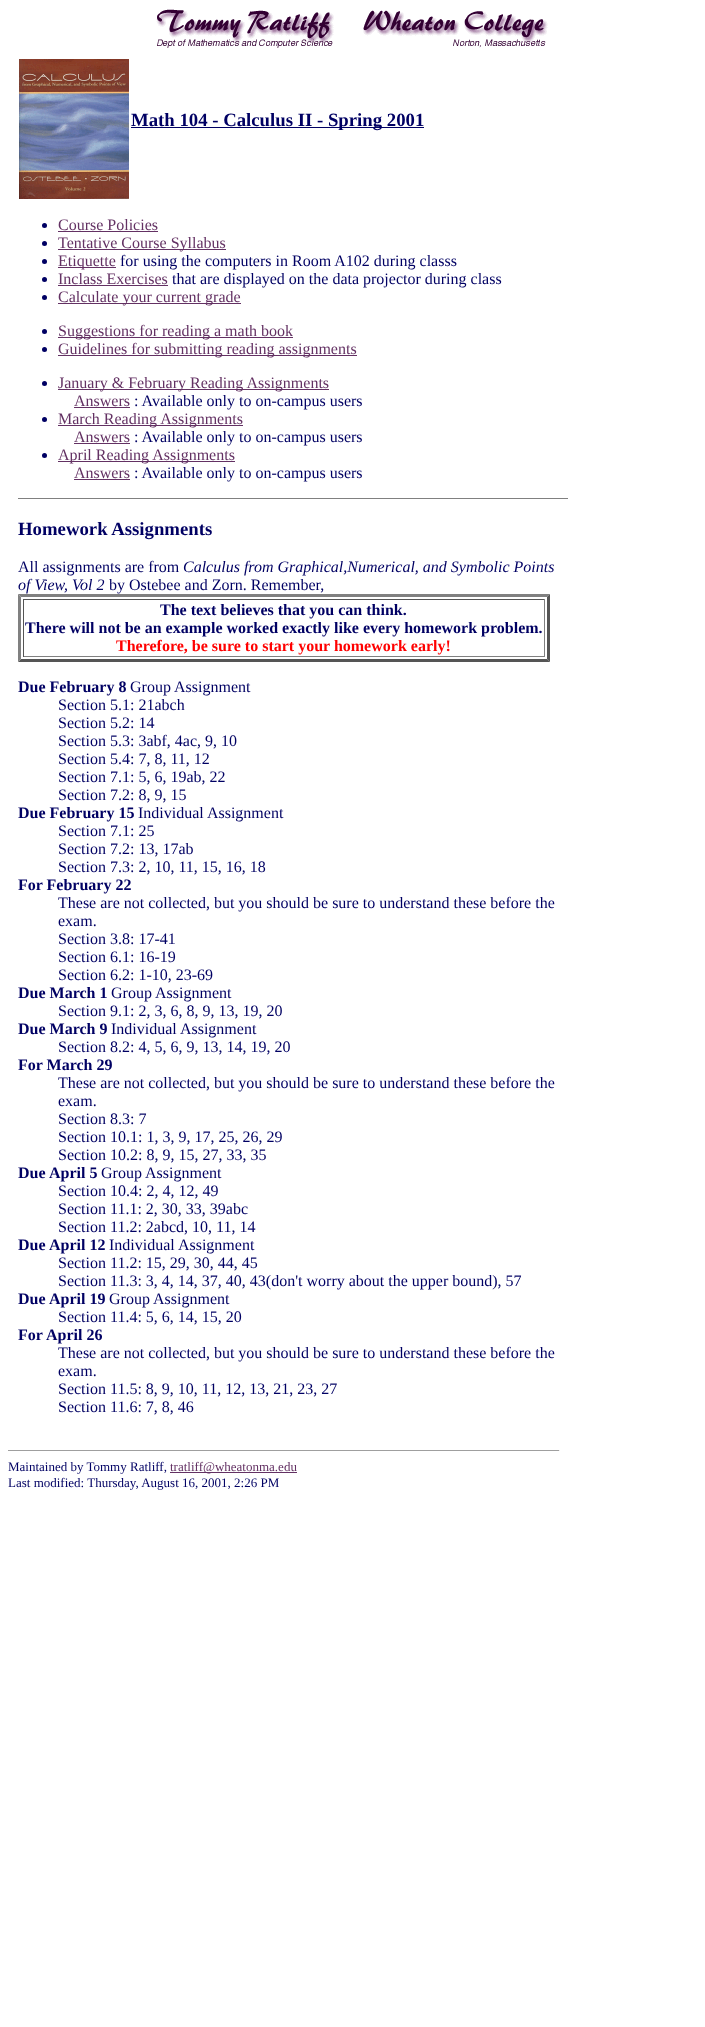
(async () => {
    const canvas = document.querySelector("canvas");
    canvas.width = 705;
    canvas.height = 2027;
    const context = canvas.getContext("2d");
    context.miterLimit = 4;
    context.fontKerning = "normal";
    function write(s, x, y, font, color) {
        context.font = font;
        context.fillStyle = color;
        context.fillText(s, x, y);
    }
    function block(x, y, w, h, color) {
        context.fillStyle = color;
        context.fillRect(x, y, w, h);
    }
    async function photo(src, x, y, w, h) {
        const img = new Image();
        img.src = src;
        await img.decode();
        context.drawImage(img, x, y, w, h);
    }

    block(0, 0, 705, 2027, "rgb(255, 255, 255)");
    await photo("media/1.png", 156, 9, 392, 39);
    await photo("media/2.png", 19, 59, 110, 140);
    block(131, 127, 293, 1, "rgb(0, 0, 99)");
    write("Math 104 - Calculus II - Spring 2001", 131, 126, "bold 18.75px Liberation Serif", "rgb(0, 0, 99)");
    context.beginPath();
    context.arc(44.5, 225.5, 2.5, 0, Math.PI * 2);
    context.fill();
    write("Course Policies", 58, 230, "16px Liberation Serif", "rgb(99, 49, 99)");
    block(58, 231, 100, 1, "rgb(99, 49, 99)");
    context.fillStyle = "rgb(0, 0, 99)";
    context.beginPath();
    context.arc(44.5, 243.5, 2.5, 0, Math.PI * 2);
    context.fill();
    block(58, 249, 168, 1, "rgb(99, 49, 99)");
    write("Tentative Course Syllabus", 58, 248, "16px Liberation Serif", "rgb(99, 49, 99)");
    context.fillStyle = "rgb(0, 0, 99)";
    context.beginPath();
    context.arc(44.5, 261.5, 2.5, 0, Math.PI * 2);
    context.fill();
    block(58, 267, 58, 1, "rgb(99, 49, 99)");
    write("Etiquette", 58, 266, "16px Liberation Serif", "rgb(99, 49, 99)");
    write("for using the computers in Room A102 during classs", 120, 266, "16px Liberation Serif", "rgb(0, 0, 99)");
    context.beginPath();
    context.arc(44.5, 279.5, 2.5, 0, Math.PI * 2);
    context.fill();
    write("Inclass Exercises", 58, 284, "16px Liberation Serif", "rgb(99, 49, 99)");
    block(58, 285, 110, 1, "rgb(99, 49, 99)");
    write("that are displayed on the data projector during class", 172, 284, "16px Liberation Serif", "rgb(0, 0, 99)");
    context.beginPath();
    context.arc(44.5, 297.5, 2.5, 0, Math.PI * 2);
    context.fill();
    block(58, 303, 183, 1, "rgb(99, 49, 99)");
    write("Calculate your current grade", 58, 302, "16px Liberation Serif", "rgb(99, 49, 99)");
    context.fillStyle = "rgb(0, 0, 99)";
    context.beginPath();
    context.arc(44.5, 331.5, 2.5, 0, Math.PI * 2);
    context.fill();
    block(58, 337, 235, 1, "rgb(99, 49, 99)");
    write("Suggestions for reading a math book", 58, 336, "16px Liberation Serif", "rgb(99, 49, 99)");
    context.fillStyle = "rgb(0, 0, 99)";
    context.beginPath();
    context.arc(44.5, 349.5, 2.5, 0, Math.PI * 2);
    context.fill();
    block(58, 355, 299, 1, "rgb(99, 49, 99)");
    write("Guidelines for submitting reading assignments", 58, 354, "16px Liberation Serif", "rgb(99, 49, 99)");
    context.fillStyle = "rgb(0, 0, 99)";
    context.beginPath();
    context.arc(44.5, 383.5, 2.5, 0, Math.PI * 2);
    context.fill();
    block(58, 389, 271, 1, "rgb(99, 49, 99)");
    write("January & February Reading Assignments", 58, 388, "16px Liberation Serif", "rgb(99, 49, 99)");
    write("Answers", 74, 406, "16px Liberation Serif", "rgb(99, 49, 99)");
    block(74, 407, 56, 1, "rgb(99, 49, 99)");
    write(": Available only to on-campus users", 134, 406, "16px Liberation Serif", "rgb(0, 0, 99)");
    context.beginPath();
    context.arc(44.5, 419.5, 2.5, 0, Math.PI * 2);
    context.fill();
    block(58, 425, 185, 1, "rgb(99, 49, 99)");
    write("March Reading Assignments", 58, 424, "16px Liberation Serif", "rgb(99, 49, 99)");
    write("Answers", 74, 442, "16px Liberation Serif", "rgb(99, 49, 99)");
    block(74, 443, 56, 1, "rgb(99, 49, 99)");
    write(": Available only to on-campus users", 134, 442, "16px Liberation Serif", "rgb(0, 0, 99)");
    context.beginPath();
    context.arc(44.5, 455.5, 2.5, 0, Math.PI * 2);
    context.fill();
    block(58, 461, 177, 1, "rgb(99, 49, 99)");
    write("April Reading Assignments", 58, 460, "16px Liberation Serif", "rgb(99, 49, 99)");
    write("Answers", 74, 478, "16px Liberation Serif", "rgb(99, 49, 99)");
    block(74, 479, 56, 1, "rgb(99, 49, 99)");
    write(": Available only to on-campus users", 134, 478, "16px Liberation Serif", "rgb(0, 0, 99)");
    block(18, 498, 550, 1, "rgb(128, 128, 128)");
    write("Homework Assignments", 18, 535, "bold 18.75px Liberation Serif", "rgb(0, 0, 99)");
    write("All assignments are from", 18, 572, "16px Liberation Serif", "rgb(0, 0, 99)");
    write("Calculus from Graphical,Numerical, and Symbolic Points", 183, 572, "italic 16px Liberation Serif", "rgb(0, 0, 99)");
    write("of View, Vol 2", 18, 590, "italic 16px Liberation Serif", "rgb(0, 0, 99)");
    write("by Ostebee and Zorn. Remember,", 109, 590, "16px Liberation Serif", "rgb(0, 0, 99)");
    context.fillStyle = "rgb(128, 128, 128)";
    context.beginPath();
    context.moveTo(18, 594);
    context.lineTo(550, 594);
    context.lineTo(547, 597);
    context.lineTo(21, 597);
    context.closePath();
    context.fill();
    context.fillStyle = "rgb(85, 85, 85)";
    context.beginPath();
    context.moveTo(550, 594);
    context.lineTo(550, 662);
    context.lineTo(547, 659);
    context.lineTo(547, 597);
    context.closePath();
    context.fill();
    context.beginPath();
    context.moveTo(550, 662);
    context.lineTo(18, 662);
    context.lineTo(21, 659);
    context.lineTo(547, 659);
    context.closePath();
    context.fill();
    context.fillStyle = "rgb(128, 128, 128)";
    context.beginPath();
    context.moveTo(18, 662);
    context.lineTo(18, 594);
    context.lineTo(21, 597);
    context.lineTo(21, 659);
    context.closePath();
    context.fill();
    block(23, 599, 522, 1, "rgb(85, 85, 85)");
    block(544, 599, 1, 58, "rgb(128, 128, 128)");
    block(23, 656, 522, 1, "rgb(128, 128, 128)");
    block(23, 599, 1, 58, "rgb(85, 85, 85)");
    write("The text believes that you can think.", 160, 615, "bold 16px Liberation Serif", "rgb(0, 0, 99)");
    write("There will not be an example worked exactly like every homework problem.", 25, 633, "bold 16px Liberation Serif", "rgb(0, 0, 99)");
    write("Therefore, be sure to start your homework early!", 116, 651, "bold 16px Liberation Serif", "rgb(255, 0, 0)");
    write("Due February 8", 18, 692, "bold 16px Liberation Serif", "rgb(0, 0, 99)");
    write("Group Assignment", 130, 692, "16px Liberation Serif", "rgb(0, 0, 99)");
    write("Section 5.1: 21abch", 58, 710, "16px Liberation Serif", "rgb(0, 0, 99)");
    write("Section 5.2: 14", 58, 728, "16px Liberation Serif", "rgb(0, 0, 99)");
    write("Section 5.3: 3abf, 4ac, 9, 10", 58, 746, "16px Liberation Serif", "rgb(0, 0, 99)");
    write("Section 5.4: 7, 8, 11, 12", 58, 764, "16px Liberation Serif", "rgb(0, 0, 99)");
    write("Section 7.1: 5, 6, 19ab, 22", 58, 782, "16px Liberation Serif", "rgb(0, 0, 99)");
    write("Section 7.2: 8, 9, 15", 58, 800, "16px Liberation Serif", "rgb(0, 0, 99)");
    write("Due February 15", 18, 818, "bold 16px Liberation Serif", "rgb(0, 0, 99)");
    write("Individual Assignment", 138, 818, "16px Liberation Serif", "rgb(0, 0, 99)");
    write("Section 7.1: 25", 58, 836, "16px Liberation Serif", "rgb(0, 0, 99)");
    write("Section 7.2: 13, 17ab", 58, 854, "16px Liberation Serif", "rgb(0, 0, 99)");
    write("Section 7.3: 2, 10, 11, 15, 16, 18", 58, 872, "16px Liberation Serif", "rgb(0, 0, 99)");
    write("For February 22", 18, 890, "bold 16px Liberation Serif", "rgb(0, 0, 99)");
    write("These are not collected, but you should be sure to understand these before the", 58, 908, "16px Liberation Serif", "rgb(0, 0, 99)");
    write("exam.", 58, 926, "16px Liberation Serif", "rgb(0, 0, 99)");
    write("Section 3.8: 17-41", 58, 944, "16px Liberation Serif", "rgb(0, 0, 99)");
    write("Section 6.1: 16-19", 58, 962, "16px Liberation Serif", "rgb(0, 0, 99)");
    write("Section 6.2: 1-10, 23-69", 58, 980, "16px Liberation Serif", "rgb(0, 0, 99)");
    write("Due March 1", 18, 998, "bold 16px Liberation Serif", "rgb(0, 0, 99)");
    write("Group Assignment", 111, 998, "16px Liberation Serif", "rgb(0, 0, 99)");
    write("Section 9.1: 2, 3, 6, 8, 9, 13, 19, 20", 58, 1016, "16px Liberation Serif", "rgb(0, 0, 99)");
    write("Due March 9", 18, 1034, "bold 16px Liberation Serif", "rgb(0, 0, 99)");
    write("Individual Assignment", 111, 1034, "16px Liberation Serif", "rgb(0, 0, 99)");
    write("Section 8.2: 4, 5, 6, 9, 13, 14, 19, 20", 58, 1052, "16px Liberation Serif", "rgb(0, 0, 99)");
    write("For March 29", 18, 1070, "bold 16px Liberation Serif", "rgb(0, 0, 99)");
    write("These are not collected, but you should be sure to understand these before the", 58, 1088, "16px Liberation Serif", "rgb(0, 0, 99)");
    write("exam.", 58, 1106, "16px Liberation Serif", "rgb(0, 0, 99)");
    write("Section 8.3: 7", 58, 1124, "16px Liberation Serif", "rgb(0, 0, 99)");
    write("Section 10.1: 1, 3, 9, 17, 25, 26, 29", 58, 1142, "16px Liberation Serif", "rgb(0, 0, 99)");
    write("Section 10.2: 8, 9, 15, 27, 33, 35", 58, 1160, "16px Liberation Serif", "rgb(0, 0, 99)");
    write("Due", 18, 1178, "bold 16px Liberation Serif", "rgb(0, 0, 99)");
    write("April 5", 49, 1178, "bold 16px Liberation Serif", "rgb(0, 0, 99)");
    write("Group Assignment", 101, 1178, "16px Liberation Serif", "rgb(0, 0, 99)");
    write("Section 10.4: 2, 4, 12, 49", 58, 1196, "16px Liberation Serif", "rgb(0, 0, 99)");
    write("Section 11.1: 2, 30, 33, 39abc", 58, 1214, "16px Liberation Serif", "rgb(0, 0, 99)");
    write("Section 11.2: 2abcd, 10, 11, 14", 58, 1232, "16px Liberation Serif", "rgb(0, 0, 99)");
    write("Due", 18, 1250, "bold 16px Liberation Serif", "rgb(0, 0, 99)");
    write("April 12", 49, 1250, "bold 16px Liberation Serif", "rgb(0, 0, 99)");
    write("Individual Assignment", 109, 1250, "16px Liberation Serif", "rgb(0, 0, 99)");
    write("Section 11.2: 15, 29, 30, 44, 45", 58, 1268, "16px Liberation Serif", "rgb(0, 0, 99)");
    write("Section 11.3: 3, 4, 14, 37, 40, 43(don't worry about the upper bound), 57", 58, 1286, "16px Liberation Serif", "rgb(0, 0, 99)");
    write("Due", 18, 1304, "bold 16px Liberation Serif", "rgb(0, 0, 99)");
    write("April 19", 49, 1304, "bold 16px Liberation Serif", "rgb(0, 0, 99)");
    write("Group Assignment", 109, 1304, "16px Liberation Serif", "rgb(0, 0, 99)");
    write("Section 11.4: 5, 6, 14, 15, 20", 58, 1322, "16px Liberation Serif", "rgb(0, 0, 99)");
    write("For", 18, 1340, "bold 16px Liberation Serif", "rgb(0, 0, 99)");
    write("April 26", 46, 1340, "bold 16px Liberation Serif", "rgb(0, 0, 99)");
    write("These are not collected, but you should be sure to understand these before the", 58, 1358, "16px Liberation Serif", "rgb(0, 0, 99)");
    write("exam.", 58, 1376, "16px Liberation Serif", "rgb(0, 0, 99)");
    write("Section 11.5: 8, 9, 10, 11, 12, 13, 21, 23, 27", 58, 1394, "16px Liberation Serif", "rgb(0, 0, 99)");
    write("Section 11.6: 7, 8, 46", 58, 1412, "16px Liberation Serif", "rgb(0, 0, 99)");
    block(8, 1450, 552, 1, "rgb(159, 159, 159)");
    block(559, 1450, 1, 1, "rgb(238, 238, 238)");
    write("Maintained by Tommy Ratliff,", 8, 1471, "13px Liberation Serif", "rgb(0, 0, 99)");
    block(170, 1472, 127, 1, "rgb(99, 49, 99)");
    write("tratliff@wheatonma.edu", 170, 1471, "13px Liberation Serif", "rgb(99, 49, 99)");
    write("Last modified: Thursday, August 16, 2001, 2:26 PM", 8, 1487, "13px Liberation Serif", "rgb(0, 0, 99)");
})();
